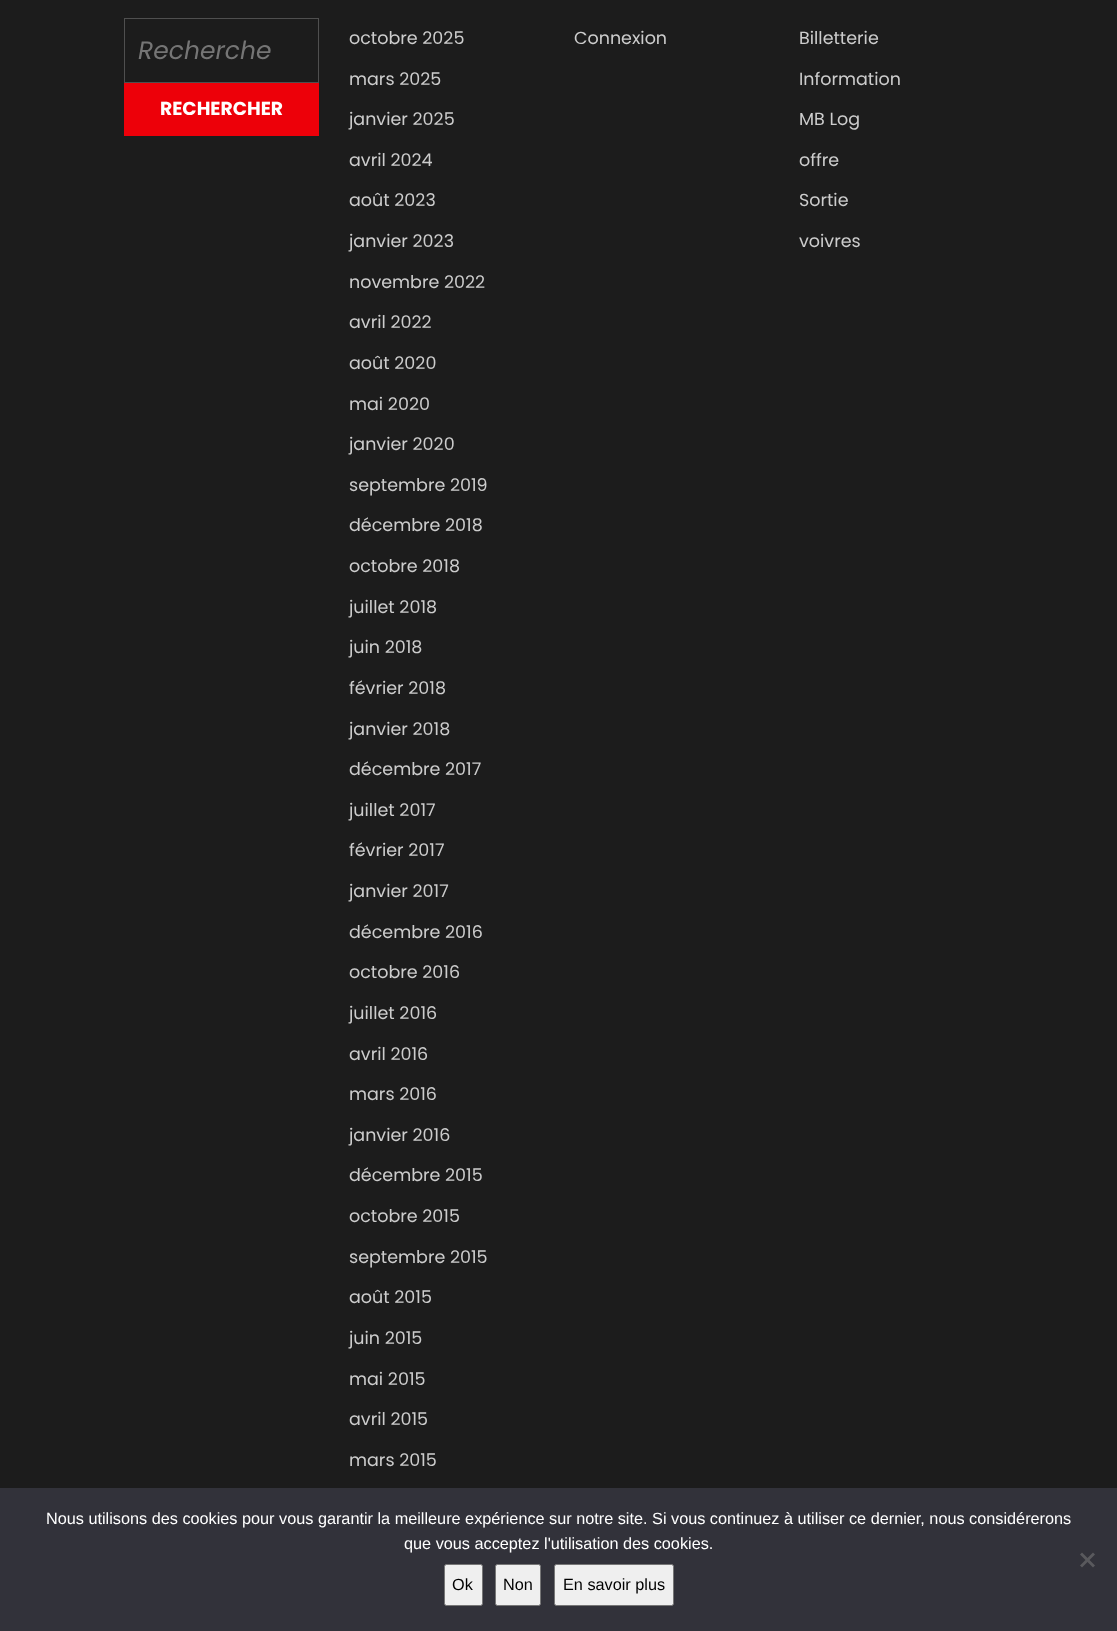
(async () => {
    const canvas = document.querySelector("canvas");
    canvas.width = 1117;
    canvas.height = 1631;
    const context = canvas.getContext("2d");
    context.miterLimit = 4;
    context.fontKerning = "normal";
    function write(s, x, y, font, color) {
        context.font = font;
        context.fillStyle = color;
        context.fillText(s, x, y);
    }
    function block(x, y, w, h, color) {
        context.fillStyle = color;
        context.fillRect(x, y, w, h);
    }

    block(0, 0, 1117, 1631, "rgb(28, 28, 28)");
    context.strokeStyle = "rgb(79, 79, 79)";
    context.strokeRect(124.5, 18.5, 194, 64);
    write("Recherche", 138, 59, "italic 25px Poppins", "rgb(117, 117, 117)");
    block(124, 83, 195, 53, "rgb(237, 0, 9)");
    write("RECHERCHER", 160, 115, "bold 18.75px Poppins", "rgb(255, 255, 255)");
    write("octobre 2025", 349, 44, "17.5px Poppins", "rgb(204, 204, 204)");
    write("mars 2025", 349, 85, "17.5px Poppins", "rgb(204, 204, 204)");
    write("janvier 2025", 349, 125, "17.5px Poppins", "rgb(204, 204, 204)");
    write("avril 2024", 349, 166, "17.5px Poppins", "rgb(204, 204, 204)");
    write("août 2023", 349, 206, "17.5px Poppins", "rgb(204, 204, 204)");
    write("janvier 2023", 349, 247, "17.5px Poppins", "rgb(204, 204, 204)");
    write("novembre 2022", 349, 288, "17.5px Poppins", "rgb(204, 204, 204)");
    write("avril 2022", 349, 328, "17.5px Poppins", "rgb(204, 204, 204)");
    write("août 2020", 349, 369, "17.5px Poppins", "rgb(204, 204, 204)");
    write("mai 2020", 349, 410, "17.5px Poppins", "rgb(204, 204, 204)");
    write("janvier 2020", 349, 450, "17.5px Poppins", "rgb(204, 204, 204)");
    write("septembre 2019", 349, 491, "17.5px Poppins", "rgb(204, 204, 204)");
    write("décembre 2018", 349, 531, "17.5px Poppins", "rgb(204, 204, 204)");
    write("octobre 2018", 349, 572, "17.5px Poppins", "rgb(204, 204, 204)");
    write("juillet 2018", 349, 613, "17.5px Poppins", "rgb(204, 204, 204)");
    write("juin 2018", 349, 653, "17.5px Poppins", "rgb(204, 204, 204)");
    write("février 2018", 349, 694, "17.5px Poppins", "rgb(204, 204, 204)");
    write("janvier 2018", 349, 735, "17.5px Poppins", "rgb(204, 204, 204)");
    write("décembre 2017", 349, 775, "17.5px Poppins", "rgb(204, 204, 204)");
    write("juillet 2017", 349, 816, "17.5px Poppins", "rgb(204, 204, 204)");
    write("février 2017", 349, 856, "17.5px Poppins", "rgb(204, 204, 204)");
    write("janvier 2017", 349, 897, "17.5px Poppins", "rgb(204, 204, 204)");
    write("décembre 2016", 349, 938, "17.5px Poppins", "rgb(204, 204, 204)");
    write("octobre 2016", 349, 978, "17.5px Poppins", "rgb(204, 204, 204)");
    write("juillet 2016", 349, 1019, "17.5px Poppins", "rgb(204, 204, 204)");
    write("avril 2016", 349, 1060, "17.5px Poppins", "rgb(204, 204, 204)");
    write("mars 2016", 349, 1100, "17.5px Poppins", "rgb(204, 204, 204)");
    write("janvier 2016", 349, 1141, "17.5px Poppins", "rgb(204, 204, 204)");
    write("décembre 2015", 349, 1181, "17.5px Poppins", "rgb(204, 204, 204)");
    write("octobre 2015", 349, 1222, "17.5px Poppins", "rgb(204, 204, 204)");
    write("septembre 2015", 349, 1263, "17.5px Poppins", "rgb(204, 204, 204)");
    write("août 2015", 349, 1303, "17.5px Poppins", "rgb(204, 204, 204)");
    write("juin 2015", 349, 1344, "17.5px Poppins", "rgb(204, 204, 204)");
    write("mai 2015", 349, 1385, "17.5px Poppins", "rgb(204, 204, 204)");
    write("avril 2015", 349, 1425, "17.5px Poppins", "rgb(204, 204, 204)");
    write("mars 2015", 349, 1466, "17.5px Poppins", "rgb(204, 204, 204)");
    write("Connexion", 574, 44, "17.5px Poppins", "rgb(204, 204, 204)");
    write("Billetterie", 799, 44, "17.5px Poppins", "rgb(204, 204, 204)");
    write("Information", 799, 85, "17.5px Poppins", "rgb(204, 204, 204)");
    write("MB Log", 799, 125, "17.5px Poppins", "rgb(204, 204, 204)");
    write("offre", 799, 166, "17.5px Poppins", "rgb(204, 204, 204)");
    write("Sortie", 799, 206, "17.5px Poppins", "rgb(204, 204, 204)");
    write("voivres", 799, 247, "17.5px Poppins", "rgb(204, 204, 204)");
    block(0, 1488, 1117, 143, "rgb(50, 50, 58)");
    write("Nous utilisons des cookies pour vous garantir la meilleure expérience sur notre site. Si vous continuez à utiliser ce dernier, nous considérerons", 46, 1524, "16.25px Liberation Sans", "rgb(255, 255, 255)");
    write("que vous acceptez l'utilisation des cookies.", 404, 1549, "16.25px Liberation Sans", "rgb(255, 255, 255)");
    context.fillStyle = "rgb(89, 89, 93)";
    context.beginPath();
    context.moveTo(1093, 1552.5);
    context.lineTo(1095, 1554.5);
    context.lineTo(1082, 1567.5);
    context.lineTo(1080, 1565.5);
    context.closePath();
    context.fill();
    context.beginPath();
    context.moveTo(1080, 1554.5);
    context.lineTo(1082, 1552.5);
    context.lineTo(1095, 1565.5);
    context.lineTo(1093, 1567.5);
    context.closePath();
    context.fill();
    context.fillStyle = "rgb(239, 239, 239)";
    context.beginPath();
    context.roundRect(444.5, 1564.5, 38, 41, 2);
    context.fill();
    context.strokeStyle = "rgb(118, 118, 118)";
    context.stroke();
    write("Ok", 452, 1590, "16.25px Liberation Sans", "rgb(0, 0, 0)");
    context.fillStyle = "rgb(239, 239, 239)";
    context.beginPath();
    context.roundRect(495.5, 1564.5, 45, 41, 2);
    context.fill();
    context.stroke();
    write("Non", 503, 1590, "16.25px Liberation Sans", "rgb(0, 0, 0)");
    context.fillStyle = "rgb(239, 239, 239)";
    context.beginPath();
    context.roundRect(554.5, 1564.5, 119, 41, 2);
    context.fill();
    context.stroke();
    write("En savoir plus", 563, 1590, "16.25px Liberation Sans", "rgb(0, 0, 0)");
})();
